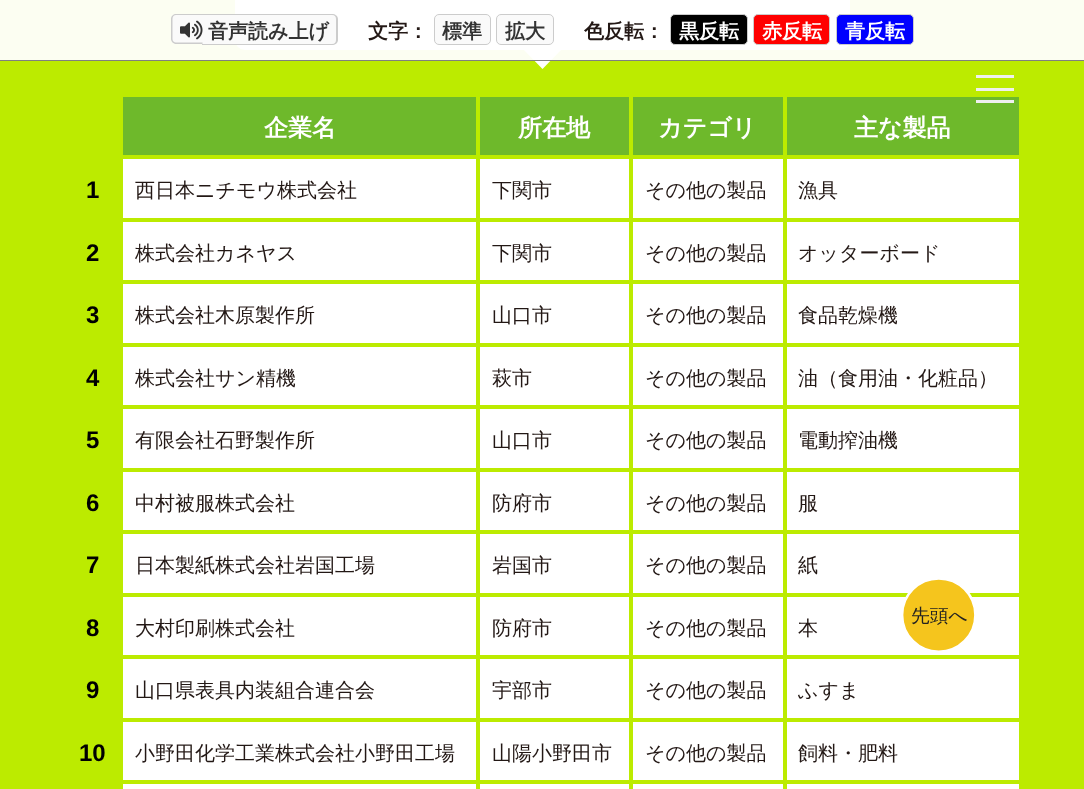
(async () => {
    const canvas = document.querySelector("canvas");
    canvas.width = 1084;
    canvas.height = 789;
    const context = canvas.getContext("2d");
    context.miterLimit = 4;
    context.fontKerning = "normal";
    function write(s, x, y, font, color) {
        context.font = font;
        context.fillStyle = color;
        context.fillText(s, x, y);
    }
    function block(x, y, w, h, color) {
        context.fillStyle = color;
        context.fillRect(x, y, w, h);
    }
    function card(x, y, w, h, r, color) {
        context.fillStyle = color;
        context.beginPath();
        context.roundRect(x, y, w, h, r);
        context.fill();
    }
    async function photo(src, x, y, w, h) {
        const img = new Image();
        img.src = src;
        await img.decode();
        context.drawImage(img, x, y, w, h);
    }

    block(0, 0, 1084, 789, "rgb(188, 235, 0)");
    card(235, -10, 615, 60, 10, "rgb(255, 255, 255)");
    context.beginPath();
    context.moveTo(524, 50);
    context.lineTo(561, 50);
    context.lineTo(542.5, 69);
    context.closePath();
    context.fill();
    block(0, 0, 1084, 60, "rgba(255, 255, 255, 0.95)");
    block(0, 60, 1084, 1, "rgb(128, 128, 128)");
    context.fillStyle = "rgb(250, 250, 250)";
    context.beginPath();
    context.roundRect(171, 14, 32, 30, [5, 0, 0, 5]);
    context.fill();
    context.fillStyle = "rgb(204, 204, 204)";
    context.beginPath();
    context.moveTo(176, 14);
    context.lineTo(202.5, 14);
    context.lineTo(202.5, 44);
    context.lineTo(176, 44);
    context.bezierCurveTo(173.5, 44, 171, 41.5, 171, 39);
    context.lineTo(171, 19);
    context.bezierCurveTo(171, 16, 173.5, 14, 176, 14);
    context.closePath();
    context.moveTo(176, 15);
    context.lineTo(202.5, 15);
    context.lineTo(202.5, 42.5);
    context.lineTo(176, 42.5);
    context.bezierCurveTo(174, 42.5, 172.5, 41, 172.5, 39);
    context.lineTo(172.5, 19);
    context.bezierCurveTo(172.5, 16.5, 174, 15, 176, 15);
    context.closePath();
    context.fill("evenodd");
    context.fillStyle = "rgb(250, 250, 250)";
    context.beginPath();
    context.roundRect(203, 14, 135, 31, [0, 5, 5, 0]);
    context.fill();
    context.fillStyle = "rgb(204, 204, 204)";
    context.beginPath();
    context.moveTo(202, 14);
    context.lineTo(332, 14);
    context.bezierCurveTo(335, 14, 338, 16, 338, 19);
    context.lineTo(338, 40);
    context.bezierCurveTo(338, 43, 335, 45, 332, 45);
    context.lineTo(202, 45);
    context.closePath();
    context.moveTo(202, 15);
    context.lineTo(332, 15);
    context.bezierCurveTo(335, 15, 336, 17, 336, 19);
    context.lineTo(336, 40);
    context.bezierCurveTo(336, 42, 335, 44, 332, 44);
    context.lineTo(202, 44);
    context.closePath();
    context.fill("evenodd");
    await photo("media/1.png", 180, 20, 23, 20);
    write("音声読み上げ", 208, 38, "bold 20px WenQuanYi Zen Hei", "rgb(51, 51, 51)");
    write("文字：", 368, 38, "bold 20px WenQuanYi Zen Hei", "rgb(35, 24, 21)");
    context.fillStyle = "rgb(250, 250, 250)";
    context.beginPath();
    context.roundRect(434.5, 14.5, 56, 30, 4.5);
    context.fill();
    context.strokeStyle = "rgb(204, 204, 204)";
    context.stroke();
    write("標準", 442, 38, "bold 20px WenQuanYi Zen Hei", "rgb(51, 51, 51)");
    context.fillStyle = "rgb(250, 250, 250)";
    context.beginPath();
    context.roundRect(496.5, 14.5, 57, 30, 4.5);
    context.fill();
    context.stroke();
    write("拡大", 505, 38, "bold 20px WenQuanYi Zen Hei", "rgb(51, 51, 51)");
    write("色反転：", 584, 38, "bold 20px WenQuanYi Zen Hei", "rgb(35, 24, 21)");
    context.fillStyle = "rgb(0, 0, 0)";
    context.beginPath();
    context.roundRect(670.5, 14.5, 77, 30, 4.5);
    context.fill();
    context.stroke();
    write("黒反転", 679, 38, "bold 20px WenQuanYi Zen Hei", "rgb(255, 255, 255)");
    context.fillStyle = "rgb(255, 0, 0)";
    context.beginPath();
    context.roundRect(753.5, 14.5, 76, 30, 4.5);
    context.fill();
    context.stroke();
    write("赤反転", 762, 38, "bold 20px WenQuanYi Zen Hei", "rgb(255, 255, 255)");
    context.fillStyle = "rgb(0, 0, 255)";
    context.beginPath();
    context.roundRect(836.5, 14.5, 77, 30, 4.5);
    context.fill();
    context.stroke();
    write("青反転", 845, 38, "bold 20px WenQuanYi Zen Hei", "rgb(255, 255, 255)");
    block(123, 159, 896, 630, "rgb(255, 255, 255)");
    block(123, 97, 353, 58, "rgb(110, 185, 43)");
    write("企業名", 264, 136, "bold 24px WenQuanYi Zen Hei", "rgb(255, 255, 255)");
    block(480, 97, 149, 58, "rgb(110, 185, 43)");
    write("所在地", 518, 136, "bold 24px WenQuanYi Zen Hei", "rgb(255, 255, 255)");
    block(633, 97, 150, 58, "rgb(110, 185, 43)");
    write("カテゴリ", 658, 136, "bold 24px WenQuanYi Zen Hei", "rgb(255, 255, 255)");
    block(787, 97, 232, 58, "rgb(110, 185, 43)");
    write("主な製品", 854, 136, "bold 24px WenQuanYi Zen Hei", "rgb(255, 255, 255)");
    write("1", 86, 198, "bold 24px Liberation Sans", "rgb(0, 0, 0)");
    write("西日本ニチモウ株式会社", 135, 197, "500 20px WenQuanYi Zen Hei", "rgb(35, 24, 21)");
    block(783, 218, 240, 4, "rgb(188, 235, 0)");
    block(783, 280, 240, 4, "rgb(188, 235, 0)");
    block(783, 343, 240, 4, "rgb(188, 235, 0)");
    block(783, 405, 240, 4, "rgb(188, 235, 0)");
    block(783, 468, 240, 4, "rgb(188, 235, 0)");
    block(783, 530, 240, 4, "rgb(188, 235, 0)");
    block(783, 593, 240, 4, "rgb(188, 235, 0)");
    block(783, 655, 240, 4, "rgb(188, 235, 0)");
    block(783, 718, 240, 4, "rgb(188, 235, 0)");
    block(783, 780, 240, 4, "rgb(188, 235, 0)");
    block(783, 780, 4, 9, "rgb(188, 235, 0)");
    block(629, 780, 157, 4, "rgb(188, 235, 0)");
    block(783, 718, 4, 66, "rgb(188, 235, 0)");
    block(629, 718, 157, 4, "rgb(188, 235, 0)");
    block(783, 655, 4, 66, "rgb(188, 235, 0)");
    block(629, 655, 157, 4, "rgb(188, 235, 0)");
    block(783, 593, 4, 66, "rgb(188, 235, 0)");
    block(629, 593, 157, 4, "rgb(188, 235, 0)");
    block(783, 530, 4, 66, "rgb(188, 235, 0)");
    block(629, 530, 157, 4, "rgb(188, 235, 0)");
    block(783, 468, 4, 66, "rgb(188, 235, 0)");
    block(629, 468, 157, 4, "rgb(188, 235, 0)");
    block(783, 405, 4, 66, "rgb(188, 235, 0)");
    block(629, 405, 157, 4, "rgb(188, 235, 0)");
    block(783, 343, 4, 66, "rgb(188, 235, 0)");
    block(629, 343, 157, 4, "rgb(188, 235, 0)");
    block(783, 280, 4, 66, "rgb(188, 235, 0)");
    block(629, 280, 157, 4, "rgb(188, 235, 0)");
    block(783, 218, 4, 66, "rgb(188, 235, 0)");
    block(629, 218, 157, 4, "rgb(188, 235, 0)");
    block(629, 780, 4, 9, "rgb(188, 235, 0)");
    block(476, 780, 157, 4, "rgb(188, 235, 0)");
    block(629, 718, 4, 66, "rgb(188, 235, 0)");
    block(476, 718, 157, 4, "rgb(188, 235, 0)");
    block(629, 655, 4, 66, "rgb(188, 235, 0)");
    block(476, 655, 157, 4, "rgb(188, 235, 0)");
    block(629, 593, 4, 66, "rgb(188, 235, 0)");
    block(476, 593, 157, 4, "rgb(188, 235, 0)");
    block(629, 530, 4, 66, "rgb(188, 235, 0)");
    block(476, 530, 157, 4, "rgb(188, 235, 0)");
    block(629, 468, 4, 66, "rgb(188, 235, 0)");
    block(476, 468, 157, 4, "rgb(188, 235, 0)");
    block(629, 405, 4, 66, "rgb(188, 235, 0)");
    block(476, 405, 157, 4, "rgb(188, 235, 0)");
    block(629, 343, 4, 66, "rgb(188, 235, 0)");
    block(476, 343, 157, 4, "rgb(188, 235, 0)");
    block(629, 280, 4, 66, "rgb(188, 235, 0)");
    block(476, 280, 157, 4, "rgb(188, 235, 0)");
    block(629, 218, 4, 66, "rgb(188, 235, 0)");
    block(476, 218, 157, 4, "rgb(188, 235, 0)");
    block(476, 780, 4, 9, "rgb(188, 235, 0)");
    block(119, 780, 361, 4, "rgb(188, 235, 0)");
    block(476, 718, 4, 66, "rgb(188, 235, 0)");
    block(119, 718, 361, 4, "rgb(188, 235, 0)");
    block(476, 655, 4, 66, "rgb(188, 235, 0)");
    block(119, 655, 361, 4, "rgb(188, 235, 0)");
    block(476, 593, 4, 66, "rgb(188, 235, 0)");
    block(119, 593, 361, 4, "rgb(188, 235, 0)");
    block(476, 530, 4, 66, "rgb(188, 235, 0)");
    block(119, 530, 361, 4, "rgb(188, 235, 0)");
    block(476, 468, 4, 66, "rgb(188, 235, 0)");
    block(119, 468, 361, 4, "rgb(188, 235, 0)");
    block(476, 405, 4, 66, "rgb(188, 235, 0)");
    block(119, 405, 361, 4, "rgb(188, 235, 0)");
    block(476, 343, 4, 66, "rgb(188, 235, 0)");
    block(119, 343, 361, 4, "rgb(188, 235, 0)");
    block(476, 280, 4, 66, "rgb(188, 235, 0)");
    block(119, 280, 361, 4, "rgb(188, 235, 0)");
    block(476, 218, 4, 66, "rgb(188, 235, 0)");
    block(119, 218, 361, 4, "rgb(188, 235, 0)");
    block(476, 155, 4, 66, "rgb(188, 235, 0)");
    write("下関市", 492, 197, "500 20px WenQuanYi Zen Hei", "rgb(35, 24, 21)");
    block(629, 155, 4, 66, "rgb(188, 235, 0)");
    write("その他の製品", 645, 197, "500 20px WenQuanYi Zen Hei", "rgb(35, 24, 21)");
    block(783, 155, 4, 66, "rgb(188, 235, 0)");
    write("漁具", 798, 197, "500 20px WenQuanYi Zen Hei", "rgb(35, 24, 21)");
    write("2", 86, 261, "bold 24px Liberation Sans", "rgb(0, 0, 0)");
    write("株式会社カネヤス", 135, 260, "500 20px WenQuanYi Zen Hei", "rgb(35, 24, 21)");
    write("下関市", 492, 260, "500 20px WenQuanYi Zen Hei", "rgb(35, 24, 21)");
    write("その他の製品", 645, 260, "500 20px WenQuanYi Zen Hei", "rgb(35, 24, 21)");
    write("オッターボード", 798, 260, "500 20px WenQuanYi Zen Hei", "rgb(35, 24, 21)");
    write("3", 86, 323, "bold 24px Liberation Sans", "rgb(0, 0, 0)");
    write("株式会社木原製作所", 135, 322, "500 20px WenQuanYi Zen Hei", "rgb(35, 24, 21)");
    write("山口市", 492, 322, "500 20px WenQuanYi Zen Hei", "rgb(35, 24, 21)");
    write("その他の製品", 645, 322, "500 20px WenQuanYi Zen Hei", "rgb(35, 24, 21)");
    write("食品乾燥機", 798, 322, "500 20px WenQuanYi Zen Hei", "rgb(35, 24, 21)");
    write("4", 86, 386, "bold 24px Liberation Sans", "rgb(0, 0, 0)");
    write("株式会社サン精機", 135, 385, "500 20px WenQuanYi Zen Hei", "rgb(35, 24, 21)");
    write("萩市", 492, 385, "500 20px WenQuanYi Zen Hei", "rgb(35, 24, 21)");
    write("その他の製品", 645, 385, "500 20px WenQuanYi Zen Hei", "rgb(35, 24, 21)");
    write("油（食用油・化粧品）", 798, 385, "500 20px WenQuanYi Zen Hei", "rgb(35, 24, 21)");
    write("5", 86, 448, "bold 24px Liberation Sans", "rgb(0, 0, 0)");
    write("有限会社石野製作所", 135, 447, "500 20px WenQuanYi Zen Hei", "rgb(35, 24, 21)");
    write("山口市", 492, 447, "500 20px WenQuanYi Zen Hei", "rgb(35, 24, 21)");
    write("その他の製品", 645, 447, "500 20px WenQuanYi Zen Hei", "rgb(35, 24, 21)");
    write("電動搾油機", 798, 447, "500 20px WenQuanYi Zen Hei", "rgb(35, 24, 21)");
    write("6", 86, 511, "bold 24px Liberation Sans", "rgb(0, 0, 0)");
    write("中村被服株式会社", 135, 510, "500 20px WenQuanYi Zen Hei", "rgb(35, 24, 21)");
    write("防府市", 492, 510, "500 20px WenQuanYi Zen Hei", "rgb(35, 24, 21)");
    write("その他の製品", 645, 510, "500 20px WenQuanYi Zen Hei", "rgb(35, 24, 21)");
    write("服", 798, 510, "500 20px WenQuanYi Zen Hei", "rgb(35, 24, 21)");
    write("7", 86, 573, "bold 24px Liberation Sans", "rgb(0, 0, 0)");
    write("日本製紙株式会社岩国工場", 135, 572, "500 20px WenQuanYi Zen Hei", "rgb(35, 24, 21)");
    write("岩国市", 492, 572, "500 20px WenQuanYi Zen Hei", "rgb(35, 24, 21)");
    write("その他の製品", 645, 572, "500 20px WenQuanYi Zen Hei", "rgb(35, 24, 21)");
    write("紙", 798, 572, "500 20px WenQuanYi Zen Hei", "rgb(35, 24, 21)");
    write("8", 86, 636, "bold 24px Liberation Sans", "rgb(0, 0, 0)");
    write("大村印刷株式会社", 135, 635, "500 20px WenQuanYi Zen Hei", "rgb(35, 24, 21)");
    write("防府市", 492, 635, "500 20px WenQuanYi Zen Hei", "rgb(35, 24, 21)");
    write("その他の製品", 645, 635, "500 20px WenQuanYi Zen Hei", "rgb(35, 24, 21)");
    write("本", 798, 635, "500 20px WenQuanYi Zen Hei", "rgb(35, 24, 21)");
    write("9", 86, 698, "bold 24px Liberation Sans", "rgb(0, 0, 0)");
    write("山口県表具内装組合連合会", 135, 697, "500 20px WenQuanYi Zen Hei", "rgb(35, 24, 21)");
    write("宇部市", 492, 697, "500 20px WenQuanYi Zen Hei", "rgb(35, 24, 21)");
    write("その他の製品", 645, 697, "500 20px WenQuanYi Zen Hei", "rgb(35, 24, 21)");
    write("ふすま", 798, 697, "500 20px WenQuanYi Zen Hei", "rgb(35, 24, 21)");
    write("10", 79, 761, "bold 24px Liberation Sans", "rgb(0, 0, 0)");
    write("小野田化学工業株式会社小野田工場", 135, 760, "500 20px WenQuanYi Zen Hei", "rgb(35, 24, 21)");
    write("山陽小野田市", 492, 760, "500 20px WenQuanYi Zen Hei", "rgb(35, 24, 21)");
    write("その他の製品", 645, 760, "500 20px WenQuanYi Zen Hei", "rgb(35, 24, 21)");
    write("飼料・肥料", 798, 760, "500 20px WenQuanYi Zen Hei", "rgb(35, 24, 21)");
    await photo("media/2.png", 903, 579, 72, 72);
    block(976, 88, 38, 3, "rgb(239, 239, 239)");
    block(976, 75, 38, 3, "rgb(239, 239, 239)");
    block(976, 100, 38, 3, "rgb(239, 239, 239)");
})();
